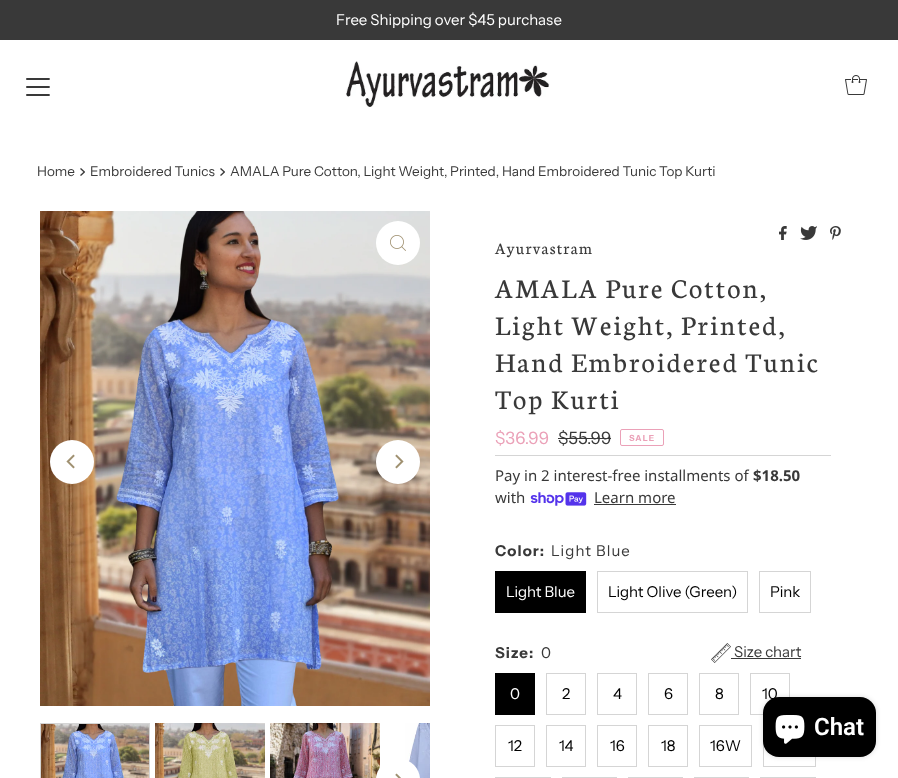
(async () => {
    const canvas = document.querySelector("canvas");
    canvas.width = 898;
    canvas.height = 778;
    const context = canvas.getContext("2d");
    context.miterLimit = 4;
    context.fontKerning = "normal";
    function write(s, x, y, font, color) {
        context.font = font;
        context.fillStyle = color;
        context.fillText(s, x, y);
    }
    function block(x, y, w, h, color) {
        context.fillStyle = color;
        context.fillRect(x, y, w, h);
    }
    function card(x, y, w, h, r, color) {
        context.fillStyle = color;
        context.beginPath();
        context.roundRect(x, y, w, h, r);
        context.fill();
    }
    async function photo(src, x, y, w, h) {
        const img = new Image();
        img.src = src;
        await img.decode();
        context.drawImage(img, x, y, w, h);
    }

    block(0, 0, 898, 778, "rgb(255, 255, 255)");
    block(0, 0, 898, 40, "rgb(57, 57, 57)");
    write("Free Shipping over $45 purchase", 336, 25, "15px Instrument Sans", "rgb(255, 255, 255)");
    await photo("media/1.png", 26, 78, 24, 18);
    await photo("media/2.png", 346, 61, 204, 46);
    await photo("media/3.png", 845, 75, 22, 20);
    write("Home", 37, 176, "13.5px Instrument Sans", "rgb(57, 57, 57)");
    await photo("media/4.png", 80, 168, 5, 8);
    write("Embroidered Tunics", 90, 176, "13.5px Instrument Sans", "rgb(57, 57, 57)");
    await photo("media/4.png", 220, 168, 5, 8);
    write("AMALA Pure Cotton, Light Weight, Printed, Hand Embroidered Tunic Top Kurti", 230, 176, "13.5px Instrument Sans", "rgb(57, 57, 57)");
    await photo("media/5.png", 40, 211, 390, 495);
    context.fillStyle = "rgb(255, 255, 255)";
    context.beginPath();
    context.arc(398, 243, 22, 0, Math.PI * 2);
    context.fill();
    await photo("media/6.png", 390, 235, 16, 16);
    context.beginPath();
    context.arc(72, 462, 22, 0, Math.PI * 2);
    context.fill();
    await photo("media/7.png", 66, 454, 9, 15);
    context.beginPath();
    context.arc(398, 462, 22, 0, Math.PI * 2);
    context.fill();
    await photo("media/8.png", 395, 454, 9, 15);
    await photo("media/9.png", 41, 724, 108, 54);
    context.strokeStyle = "rgb(213, 213, 213)";
    context.strokeRect(40.5, 723.5, 109, 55);
    await photo("media/10.png", 155, 723, 110, 55);
    await photo("media/11.png", 270, 723, 110, 55);
    await photo("media/12.png", 405, 723, 25, 55);
    card(376, 759, 44, 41, 22, "rgb(255, 255, 255)");
    await photo("media/13.png", 395, 773, 6, 5);
    await photo("media/14.png", 779, 226, 8, 14);
    await photo("media/15.png", 800, 226, 17, 14);
    await photo("media/16.png", 830, 226, 11, 14);
    context.letterSpacing = "1.25px";
    write("Ayurvastram", 495, 254, "17px Neuton", "rgb(57, 57, 57)");
    context.letterSpacing = "2.2px";
    write("AMALA Pure Cotton,", 495, 298, "29px Neuton", "rgb(57, 57, 57)");
    write("Light Weight, Printed,", 495, 335, "29px Neuton", "rgb(57, 57, 57)");
    write("Hand Embroidered Tunic", 495, 372, "29px Neuton", "rgb(57, 57, 57)");
    write("Top Kurti", 495, 409, "29px Neuton", "rgb(57, 57, 57)");
    block(495, 455, 336, 1, "rgb(213, 213, 213)");
    context.letterSpacing = "0px";
    write("$36.99", 495, 444, "17px Instrument Sans", "rgb(235, 161, 184)");
    write("$55.99", 558, 444, "17px Instrument Sans", "rgb(57, 57, 57)");
    block(558, 438, 53, 1, "rgb(57, 57, 57)");
    context.beginPath();
    context.roundRect(620.5, 429.5, 43, 16, 1.5);
    context.strokeStyle = "rgb(235, 161, 184)";
    context.stroke();
    context.letterSpacing = "1px";
    write("SALE", 629, 441, "bold 8.5px Instrument Sans", "rgb(235, 161, 184)");
    context.letterSpacing = "0px";
    write("Pay in 2 interest-free installments of", 495, 481, "15px Noto Sans", "rgb(57, 57, 57)");
    write("$18.50", 753, 481, "bold 15px Noto Sans", "rgb(57, 57, 57)");
    write("with", 495, 503, "15px Noto Sans", "rgb(57, 57, 57)");
    await photo("media/17.png", 530, 492, 57, 14);
    write("Learn more", 594, 503, "15px Noto Sans", "rgb(57, 57, 57)");
    block(594, 504, 82, 1, "rgb(57, 57, 57)");
    context.letterSpacing = "1.1px";
    write("Color:", 495, 556, "bold 15px Instrument Sans", "rgb(57, 57, 57)");
    write("Light Blue", 551, 556, "15px Instrument Sans", "rgb(57, 57, 57)");
    block(495, 571, 91, 42, "rgb(0, 0, 0)");
    context.letterSpacing = "0px";
    write("Light Blue", 506, 597, "15px Instrument Sans", "rgb(255, 255, 255)");
    context.strokeStyle = "rgb(213, 213, 213)";
    context.strokeRect(597.5, 571.5, 150, 41);
    write("Light Olive (Green)", 608, 597, "15px Instrument Sans", "rgb(0, 0, 0)");
    context.strokeRect(759.5, 571.5, 51, 41);
    write("Pink", 770, 597, "15px Instrument Sans", "rgb(0, 0, 0)");
    context.letterSpacing = "1.1px";
    write("Size:", 495, 658, "bold 15px Instrument Sans", "rgb(57, 57, 57)");
    write("0", 541, 658, "15px Instrument Sans", "rgb(57, 57, 57)");
    await photo("media/18.png", 711, 643, 20, 20);
    context.letterSpacing = "0px";
    write("Size chart", 734, 657, "15px Instrument Sans", "rgb(57, 57, 57)");
    block(731, 658, 70, 1, "rgb(57, 57, 57)");
    block(495, 673, 40, 42, "rgb(0, 0, 0)");
    write("0", 510, 699, "15px Instrument Sans", "rgb(255, 255, 255)");
    context.strokeRect(546.5, 673.5, 39, 41);
    write("2", 562, 699, "15px Instrument Sans", "rgb(0, 0, 0)");
    context.strokeRect(597.5, 673.5, 39, 41);
    write("4", 613, 699, "15px Instrument Sans", "rgb(0, 0, 0)");
    context.strokeRect(648.5, 673.5, 39, 41);
    write("6", 664, 699, "15px Instrument Sans", "rgb(0, 0, 0)");
    context.strokeRect(699.5, 673.5, 39, 41);
    write("8", 715, 699, "15px Instrument Sans", "rgb(0, 0, 0)");
    context.strokeRect(750.5, 673.5, 39, 41);
    write("10", 762, 699, "15px Instrument Sans", "rgb(0, 0, 0)");
    context.strokeRect(495.5, 725.5, 39, 41);
    write("12", 508, 751, "15px Instrument Sans", "rgb(0, 0, 0)");
    context.strokeRect(546.5, 725.5, 39, 41);
    write("14", 559, 751, "15px Instrument Sans", "rgb(0, 0, 0)");
    context.strokeRect(597.5, 725.5, 39, 41);
    write("16", 610, 751, "15px Instrument Sans", "rgb(0, 0, 0)");
    context.strokeRect(648.5, 725.5, 39, 41);
    write("18", 661, 751, "15px Instrument Sans", "rgb(0, 0, 0)");
    context.strokeRect(699.5, 725.5, 52, 41);
    write("16W", 710, 751, "15px Instrument Sans", "rgb(0, 0, 0)");
    context.strokeRect(763.5, 725.5, 52, 41);
    context.strokeRect(495.5, 777.5, 55, 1);
    context.strokeRect(562.5, 777.5, 54, 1);
    context.strokeRect(628.5, 777.5, 54, 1);
    context.strokeRect(694.5, 777.5, 54, 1);
    context.strokeRect(760.5, 777.5, 55, 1);
    context.fillStyle = "rgba(0, 0, 0, 0.15)";
    context.filter = "blur(2.5px)";
    context.beginPath();
    context.roundRect(763, 697, 113, 60, 16);
    context.fill();
    context.filter = "none";
    card(763, 697, 113, 60, 16, "rgb(0, 0, 0)");
    await photo("media/19.png", 775, 715, 30, 29);
    write("Chat", 814, 735, "600 24px Roboto", "rgb(255, 255, 255)");
})();
